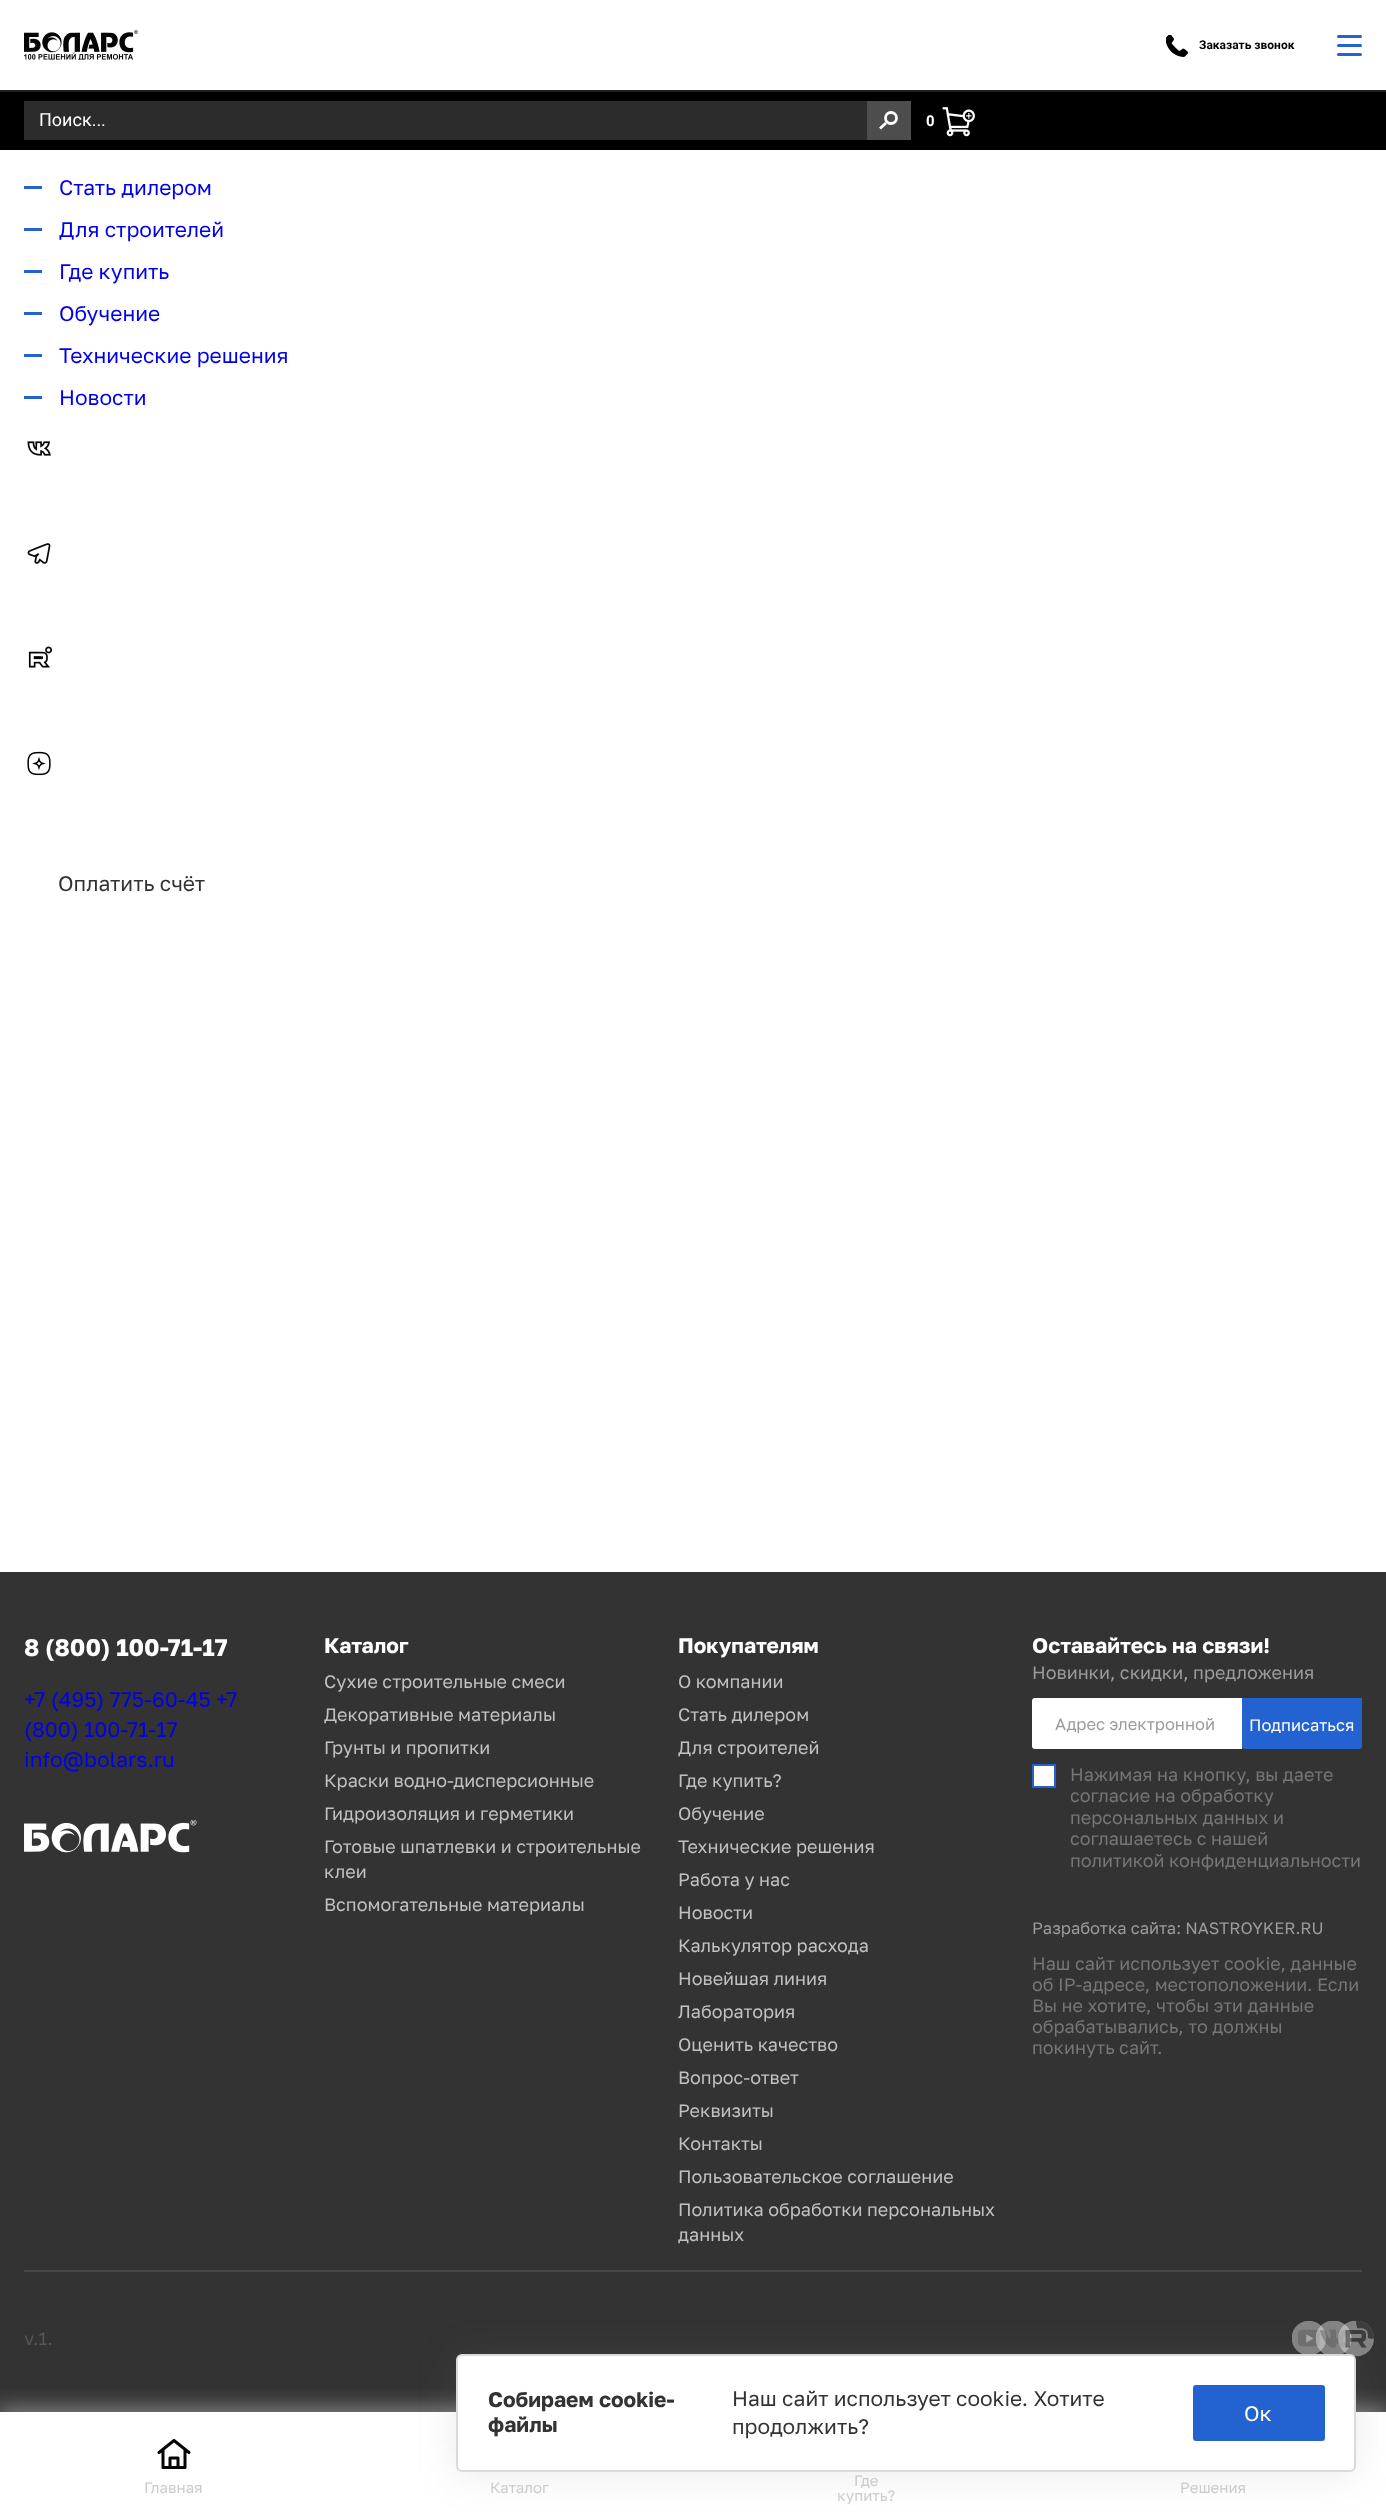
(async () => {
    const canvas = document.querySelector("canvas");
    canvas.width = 1386;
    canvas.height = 2516;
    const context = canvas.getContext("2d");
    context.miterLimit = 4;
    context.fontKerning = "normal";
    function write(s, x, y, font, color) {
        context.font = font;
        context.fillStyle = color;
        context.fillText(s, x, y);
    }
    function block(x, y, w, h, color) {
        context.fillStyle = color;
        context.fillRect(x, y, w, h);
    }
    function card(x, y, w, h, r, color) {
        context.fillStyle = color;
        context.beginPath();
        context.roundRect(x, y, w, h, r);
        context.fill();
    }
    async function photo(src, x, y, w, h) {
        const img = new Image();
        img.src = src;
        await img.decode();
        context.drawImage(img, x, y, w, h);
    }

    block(0, 0, 1386, 2516, "rgb(255, 255, 255)");
    await photo("media/1.png", 24, 30, 114, 30);
    await photo("media/2.png", 1166, 35, 22, 22);
    write("Заказать звонок", 1199, 49, "bold 12px Roboto", "rgb(0, 0, 0)");
    card(1337, 35, 25, 3, 1.5, "rgb(35, 99, 209)");
    card(1337, 44, 25, 3, 1.5, "rgb(35, 99, 209)");
    card(1337, 53, 25, 3, 1.5, "rgb(35, 99, 209)");
    block(0, 92, 1386, 58, "rgb(0, 0, 0)");
    block(0, 90, 1386, 2, "rgb(32, 32, 32)");
    block(24, 101, 843, 39, "rgb(44, 44, 44)");
    write("Поиск...", 39, 126, "18px Roboto", "rgb(255, 255, 255)");
    block(867, 101, 44, 39, "rgb(77, 77, 77)");
    context.beginPath();
    context.arc(891, 118, 5.5, 0, Math.PI * 2);
    context.strokeStyle = "rgb(255, 255, 255)";
    context.lineWidth = 2.8;
    context.stroke();
    context.beginPath();
    context.moveTo(886, 123);
    context.lineTo(880, 128.5);
    context.stroke();
    write("0", 926, 126, "bold 15px Roboto", "rgb(255, 255, 255)");
    await photo("media/3.png", 942, 107, 33, 30);
    block(24, 186, 18, 3, "rgb(35, 99, 209)");
    write("Стать дилером", 59, 195, "21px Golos", "rgb(0, 0, 238)");
    block(24, 228, 18, 3, "rgb(35, 99, 209)");
    write("Для строителей", 59, 237, "21px Golos", "rgb(0, 0, 238)");
    block(24, 270, 18, 3, "rgb(35, 99, 209)");
    write("Где купить", 59, 279, "21px Golos", "rgb(0, 0, 238)");
    block(24, 312, 18, 3, "rgb(35, 99, 209)");
    write("Обучение", 59, 321, "21px Golos", "rgb(0, 0, 238)");
    block(24, 354, 18, 3, "rgb(35, 99, 209)");
    write("Технические решения", 59, 363, "21px Golos", "rgb(0, 0, 238)");
    block(24, 396, 18, 3, "rgb(35, 99, 209)");
    write("Новости", 59, 405, "21px Golos", "rgb(0, 0, 238)");
    await photo("media/4.png", 27, 441, 24, 15);
    await photo("media/5.png", 27, 543, 24, 21);
    await photo("media/6.png", 28, 646, 24, 22);
    await photo("media/7.png", 27, 751, 24, 25);
    write("Оплатить счёт", 58, 891, "21px Golos", "rgb(51, 51, 51)");
    block(0, 1572, 1386, 840, "rgb(51, 51, 51)");
    write("8 (800) 100-71-17", 24, 1656, "bold 24px Golos Text", "rgb(255, 255, 255)");
    write("+7 (495) 775-60-45 +7", 24, 1707, "21px Golos", "rgb(0, 0, 238)");
    write("(800) 100-71-17", 24, 1737, "21px Golos", "rgb(0, 0, 238)");
    write("info@bolars.ru", 24, 1767, "21px Golos", "rgb(0, 0, 238)");
    await photo("media/8.png", 24, 1820, 173, 33);
    write("Каталог", 324, 1653, "bold 21px Golos Text", "rgb(255, 255, 255)");
    write("Сухие строительные смеси", 324, 1688, "18px Golos", "rgb(193, 193, 193)");
    write("Декоративные материалы", 324, 1721, "18px Golos", "rgb(193, 193, 193)");
    write("Грунты и пропитки", 324, 1754, "18px Golos", "rgb(193, 193, 193)");
    write("Краски водно-дисперсионные", 324, 1787, "18px Golos", "rgb(193, 193, 193)");
    write("Гидроизоляция и герметики", 324, 1820, "18px Golos", "rgb(193, 193, 193)");
    write("Готовые шпатлевки и строительные", 324, 1853, "18px Golos", "rgb(193, 193, 193)");
    write("клеи", 324, 1878, "18px Golos", "rgb(193, 193, 193)");
    write("Вспомогательные материалы", 324, 1911, "18px Golos", "rgb(193, 193, 193)");
    write("Покупателям", 678, 1653, "bold 21px Golos Text", "rgb(255, 255, 255)");
    write("О компании", 678, 1688, "18px Golos", "rgb(193, 193, 193)");
    write("Стать дилером", 678, 1721, "18px Golos", "rgb(193, 193, 193)");
    write("Для строителей", 678, 1754, "18px Golos", "rgb(193, 193, 193)");
    write("Где купить?", 678, 1787, "18px Golos", "rgb(193, 193, 193)");
    write("Обучение", 678, 1820, "18px Golos", "rgb(193, 193, 193)");
    write("Технические решения", 678, 1853, "18px Golos", "rgb(193, 193, 193)");
    write("Работа у нас", 678, 1886, "18px Golos", "rgb(193, 193, 193)");
    write("Новости", 678, 1919, "18px Golos", "rgb(193, 193, 193)");
    write("Калькулятор расхода", 678, 1952, "18px Golos", "rgb(193, 193, 193)");
    write("Новейшая линия", 678, 1985, "18px Golos", "rgb(193, 193, 193)");
    write("Лаборатория", 678, 2018, "18px Golos", "rgb(193, 193, 193)");
    write("Оценить качество", 678, 2051, "18px Golos", "rgb(193, 193, 193)");
    write("Вопрос-ответ", 678, 2084, "18px Golos", "rgb(193, 193, 193)");
    write("Реквизиты", 678, 2117, "18px Golos", "rgb(193, 193, 193)");
    write("Контакты", 678, 2150, "18px Golos", "rgb(193, 193, 193)");
    write("Пользовательское соглашение", 678, 2183, "18px Golos", "rgb(193, 193, 193)");
    write("Политика обработки персональных", 678, 2216, "18px Golos", "rgb(193, 193, 193)");
    write("данных", 678, 2241, "18px Golos", "rgb(193, 193, 193)");
    write("Оставайтесь на связи!", 1032, 1653, "bold 21px Golos Text", "rgb(255, 255, 255)");
    write("Новинки, скидки, предложения", 1032, 1679, "18px Golos", "rgb(156, 156, 156)");
    context.fillStyle = "rgb(255, 255, 255)";
    context.beginPath();
    context.roundRect(1032, 1698, 210, 51, [3, 0, 0, 3]);
    context.fill();
    write("Адрес электронной", 1055, 1730, "16.5px Golos", "rgb(156, 156, 156)");
    context.fillStyle = "rgb(35, 99, 209)";
    context.beginPath();
    context.roundRect(1243, 1699, 118, 49, [0, 0, 2, 2]);
    context.fill();
    context.strokeStyle = "rgb(35, 99, 209)";
    context.lineWidth = 2;
    context.stroke();
    write("Подписаться", 1249, 1731, "16.5px Golos", "rgb(255, 255, 255)");
    context.beginPath();
    context.rect(1033, 1765, 22, 22);
    context.fill();
    context.stroke();
    write("Нажимая на кнопку, вы даете", 1070, 1781, "18px Golos", "rgb(118, 118, 118)");
    write("согласие на обработку", 1070, 1802, "18px Golos", "rgb(118, 118, 118)");
    write("персональных данных и", 1070, 1824, "18px Golos", "rgb(118, 118, 118)");
    write("соглашаетесь с нашей", 1070, 1845, "18px Golos", "rgb(118, 118, 118)");
    write("политикой конфиденциальности", 1070, 1867, "18px Golos", "rgb(118, 118, 118)");
    write("Разработка сайта: NASTROYKER.RU", 1032, 1934, "16.5px Golos", "rgb(156, 156, 156)");
    write("Наш сайт использует cookie, данные", 1032, 1970, "18px Golos", "rgb(118, 118, 118)");
    write("об IP-адресе, местоположении. Если", 1032, 1991, "18px Golos", "rgb(118, 118, 118)");
    write("Вы не хотите, чтобы эти данные", 1032, 2012, "18px Golos", "rgb(118, 118, 118)");
    write("обрабатывались, то должны", 1032, 2033, "18px Golos", "rgb(118, 118, 118)");
    write("покинуть сайт.", 1032, 2054, "18px Golos", "rgb(118, 118, 118)");
    block(24, 2270, 1338, 2, "rgb(71, 71, 71)");
    write("v.1.", 24, 2345, "18px Golos", "rgb(85, 85, 85)");
    await photo("media/9.png", 1292, 2321, 34, 33);
    await photo("media/10.png", 1316, 2321, 36, 33);
    await photo("media/11.png", 1338, 2321, 36, 36);
    context.fillStyle = "rgba(118, 118, 118, 0.15)";
    context.filter = "blur(19px)";
    context.beginPath();
    context.roundRect(456, 2357, 900, 118, 6);
    context.fill();
    context.filter = "none";
    context.save();
    context.beginPath();
    context.rect(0, 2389, 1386, 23);
    context.clip();
    context.fillStyle = "rgba(218, 218, 218, 0.5)";
    context.filter = "blur(11px)";
    context.beginPath();
    context.rect(-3, 2408, 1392, 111);
    context.fill();
    context.filter = "none";
    context.restore();
    context.fillStyle = "rgb(255, 255, 255)";
    context.beginPath();
    context.roundRect(457, 2355, 898, 116, 5);
    context.fill();
    context.strokeStyle = "rgb(217, 217, 222)";
    context.stroke();
    write("Собираем cookie-", 488, 2407, "bold 21px Golos Text", "rgb(51, 51, 51)");
    write("файлы", 488, 2432, "bold 21px Golos Text", "rgb(51, 51, 51)");
    write("Наш сайт использует cookie. Хотите", 732, 2406, "21px Golos", "rgb(51, 51, 51)");
    write("продолжить?", 732, 2434, "21px Golos", "rgb(51, 51, 51)");
    card(1193, 2385, 132, 56, 3, "rgb(35, 99, 209)");
    write("Ок", 1244, 2421, "21px Golos", "rgb(255, 255, 255)");
    context.beginPath();
    context.moveTo(163, 2467.5);
    context.lineTo(163, 2449.5);
    context.lineTo(159, 2452.5);
    context.lineTo(174, 2440.5);
    context.lineTo(189, 2452.5);
    context.lineTo(185, 2449.5);
    context.lineTo(185, 2467.5);
    context.closePath();
    context.strokeStyle = "rgb(5, 5, 5)";
    context.lineWidth = 3;
    context.lineCap = "round";
    context.lineJoin = "round";
    context.stroke();
    context.beginPath();
    context.moveTo(170, 2458);
    context.lineTo(170, 2467.5);
    context.lineTo(178, 2467.5);
    context.lineTo(178, 2458);
    context.closePath();
    context.lineCap = "butt";
    context.stroke();
    write("Главная", 144, 2493, "15px Golos", "rgb(204, 204, 204)");
    write("Каталог", 490, 2493, "15px Golos", "rgb(204, 204, 204)");
    write("Где", 854, 2486, "15px Golos", "rgb(204, 204, 204)");
    write("купить?", 837, 2501, "15px Golos", "rgb(204, 204, 204)");
    write("Решения", 1180, 2493, "15px Golos", "rgb(204, 204, 204)");
})();
